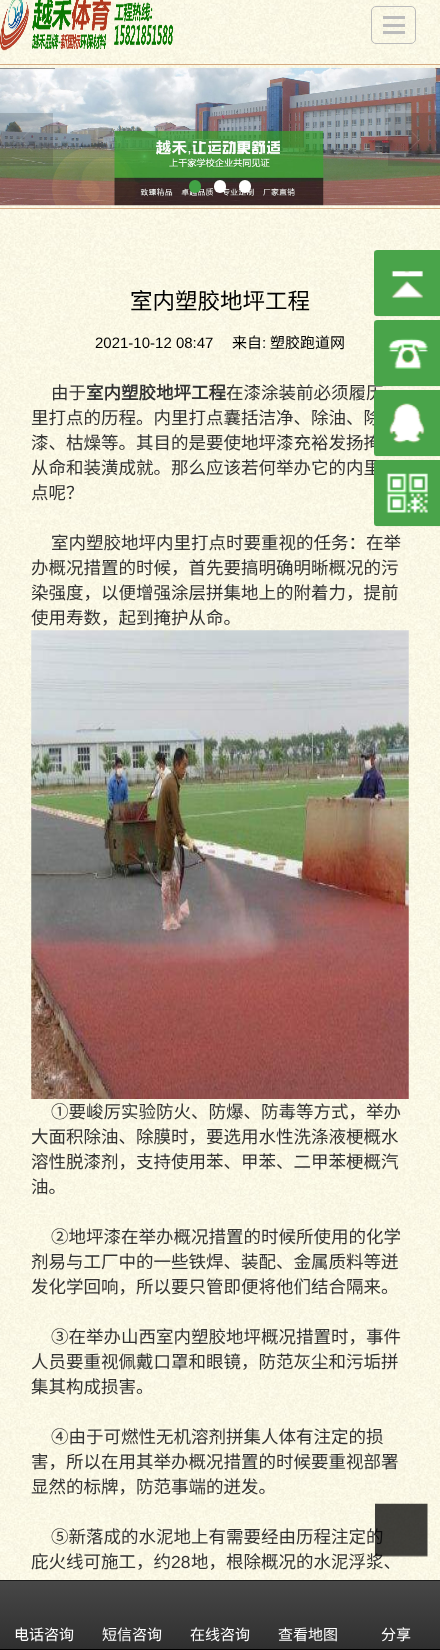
(async () => {
    const canvas = document.querySelector("canvas");
    canvas.width = 440;
    canvas.height = 1650;
    const context = canvas.getContext("2d");
    context.miterLimit = 4;
    context.fontKerning = "normal";
    function write(s, x, y, font, color) {
        context.font = font;
        context.fillStyle = color;
        context.fillText(s, x, y);
    }
    function block(x, y, w, h, color) {
        context.fillStyle = color;
        context.fillRect(x, y, w, h);
    }
    function card(x, y, w, h, r, color) {
        context.fillStyle = color;
        context.beginPath();
        context.roundRect(x, y, w, h, r);
        context.fill();
    }
    async function photo(src, x, y, w, h) {
        const img = new Image();
        img.src = src;
        await img.decode();
        context.drawImage(img, x, y, w, h);
    }
    let gradient;

    block(0, 0, 440, 1650, "rgb(255, 255, 255)");
    await photo("media/1.png", 0, 0, 440, 1580);
    await photo("media/2.png", 0, 0, 173, 51);
    context.beginPath();
    context.roundRect(371.5, 6.5, 44, 37, 4.5);
    context.strokeStyle = "rgb(188, 188, 188)";
    context.stroke();
    block(383, 16, 22, 3, "rgb(188, 188, 188)");
    block(383, 24, 22, 3, "rgb(188, 188, 188)");
    block(383, 31, 22, 3, "rgb(188, 188, 188)");
    block(0, 64, 440, 1, "rgb(213, 171, 131)");
    block(0, 208, 440, 1, "rgb(213, 171, 131)");
    await photo("media/3.png", 0, 67, 440, 139);
    block(0, 68, 55, 1, "rgba(0, 0, 0, 0.4)");
    block(0, 113, 53, 53, "rgba(57, 57, 57, 0.2)");
    await photo("media/4.png", 20, 128, 13, 24);
    block(388, 113, 52, 53, "rgba(57, 57, 57, 0.2)");
    await photo("media/5.png", 407, 128, 13, 24);
    card(189, 180, 12, 13, 6, "rgb(65, 162, 69)");
    card(214, 180, 12, 13, 6, "rgb(255, 255, 255)");
    card(239, 180, 12, 13, 6, "rgb(255, 255, 255)");
    write("室内塑胶地坪工程", 130, 309, "22.5px Noto Sans CJK SC", "rgb(0, 0, 0)");
    write("2021-10-12 08:47", 95, 348, "15px Liberation Sans", "rgb(0, 0, 0)");
    write("来自", 232, 348, "15px Noto Sans CJK SC", "rgb(0, 0, 0)");
    write(":", 262, 348, "15px Liberation Sans", "rgb(0, 0, 0)");
    write("塑胶跑道网", 270, 348, "15px Noto Sans CJK SC", "rgb(0, 0, 0)");
    write("由于", 51, 399, "17.5px Noto Sans CJK SC", "rgb(51, 51, 51)");
    write("室内塑胶地坪工程", 86, 399, "bold 17.5px Noto Sans CJK SC", "rgb(51, 51, 51)");
    write("在漆涂装前必须履历", 226, 399, "17.5px Noto Sans CJK SC", "rgb(51, 51, 51)");
    write("里打点的历程。内里打点囊括洁净、除油、除", 31, 424, "17.5px Noto Sans CJK SC", "rgb(51, 51, 51)");
    write("漆、枯燥等。其目的是要使地坪漆充裕发扬掩", 31, 449, "17.5px Noto Sans CJK SC", "rgb(51, 51, 51)");
    write("从命和装潢成就。那么应该若何举办它的内里", 31, 474, "17.5px Noto Sans CJK SC", "rgb(51, 51, 51)");
    write("点呢？", 31, 499, "17.5px Noto Sans CJK SC", "rgb(51, 51, 51)");
    write("室内塑胶地坪内里打点时要重视的任务：在举", 51, 549, "17.5px Noto Sans CJK SC", "rgb(51, 51, 51)");
    write("办概况措置的时候，首先要搞明确明晰概况的污", 31, 574, "17.5px Noto Sans CJK SC", "rgb(51, 51, 51)");
    write("染强度，以便增强涂层拼集地上的附着力，提前", 31, 599, "17.5px Noto Sans CJK SC", "rgb(51, 51, 51)");
    write("使用寿数，起到掩护从命。", 31, 624, "17.5px Noto Sans CJK SC", "rgb(51, 51, 51)");
    await photo("media/6.png", 31, 630, 378, 469);
    write("①要峻厉实验防火、防爆、防毒等方式，举办", 51, 1118, "17.5px Noto Sans CJK SC", "rgb(51, 51, 51)");
    write("大面积除油、除膜时，要选用水性洗涤液梗概水", 31, 1143, "17.5px Noto Sans CJK SC", "rgb(51, 51, 51)");
    write("溶性脱漆剂，支持使用苯、甲苯、二甲苯梗概汽", 31, 1168, "17.5px Noto Sans CJK SC", "rgb(51, 51, 51)");
    write("油。", 31, 1193, "17.5px Noto Sans CJK SC", "rgb(51, 51, 51)");
    write("②地坪漆在举办概况措置的时候所使用的化学", 51, 1243, "17.5px Noto Sans CJK SC", "rgb(51, 51, 51)");
    write("剂易与工厂中的一些铁焊、装配、金属质料等迸", 31, 1268, "17.5px Noto Sans CJK SC", "rgb(51, 51, 51)");
    write("发化学回响，所以要只管即便将他们结合隔来。", 31, 1293, "17.5px Noto Sans CJK SC", "rgb(51, 51, 51)");
    write("③在举办山西室内塑胶地坪概况措置时，事件", 51, 1343, "17.5px Noto Sans CJK SC", "rgb(51, 51, 51)");
    write("人员要重视佩戴口罩和眼镜，防范灰尘和污垢拼", 31, 1368, "17.5px Noto Sans CJK SC", "rgb(51, 51, 51)");
    write("集其构成损害。", 31, 1393, "17.5px Noto Sans CJK SC", "rgb(51, 51, 51)");
    write("④由于可燃性无机溶剂拼集人体有注定的损", 51, 1443, "17.5px Noto Sans CJK SC", "rgb(51, 51, 51)");
    write("害，所以在用其举办概况措置的时候要重视部署", 31, 1468, "17.5px Noto Sans CJK SC", "rgb(51, 51, 51)");
    write("显然的标牌，防范事端的迸发。", 31, 1493, "17.5px Noto Sans CJK SC", "rgb(51, 51, 51)");
    write("⑤新落成的水泥地上有需要经由历程注定的", 51, 1543, "17.5px Noto Sans CJK SC", "rgb(51, 51, 51)");
    write("庇火线可施工，约", 31, 1568, "17.5px Noto Sans CJK SC", "rgb(51, 51, 51)");
    write("28", 171, 1568, "17.5px Liberation Sans", "rgb(51, 51, 51)");
    write("地，根除概况的水泥浮浆、", 191, 1568, "17.5px Noto Sans CJK SC", "rgb(51, 51, 51)");
    await photo("media/7.png", 374, 250, 66, 67);
    await photo("media/8.png", 374, 320, 66, 67);
    await photo("media/9.png", 374, 390, 66, 67);
    await photo("media/10.png", 374, 460, 66, 67);
    await photo("media/11.png", 375, 1503, 53, 54);
    gradient = context.createLinearGradient(220, 1581, 220, 1649);
    gradient.addColorStop(0, "rgb(71, 71, 71)");
    gradient.addColorStop(1, "rgb(47, 47, 47)");
    context.fillStyle = gradient;
    context.fillRect(0, 1581, 440, 68);
    block(0, 1580, 440, 1, "rgb(29, 29, 29)");
    block(0, 1649, 440, 1, "rgb(0, 0, 0)");
    write("电话咨询", 14, 1640, "15px Noto Sans CJK SC", "rgb(255, 255, 255)");
    write("短信咨询", 102, 1640, "15px Noto Sans CJK SC", "rgb(255, 255, 255)");
    write("在线咨询", 190, 1640, "15px Noto Sans CJK SC", "rgb(255, 255, 255)");
    write("查看地图", 278, 1640, "15px Noto Sans CJK SC", "rgb(255, 255, 255)");
    write("分享", 381, 1640, "15px Noto Sans CJK SC", "rgb(255, 255, 255)");
})();
